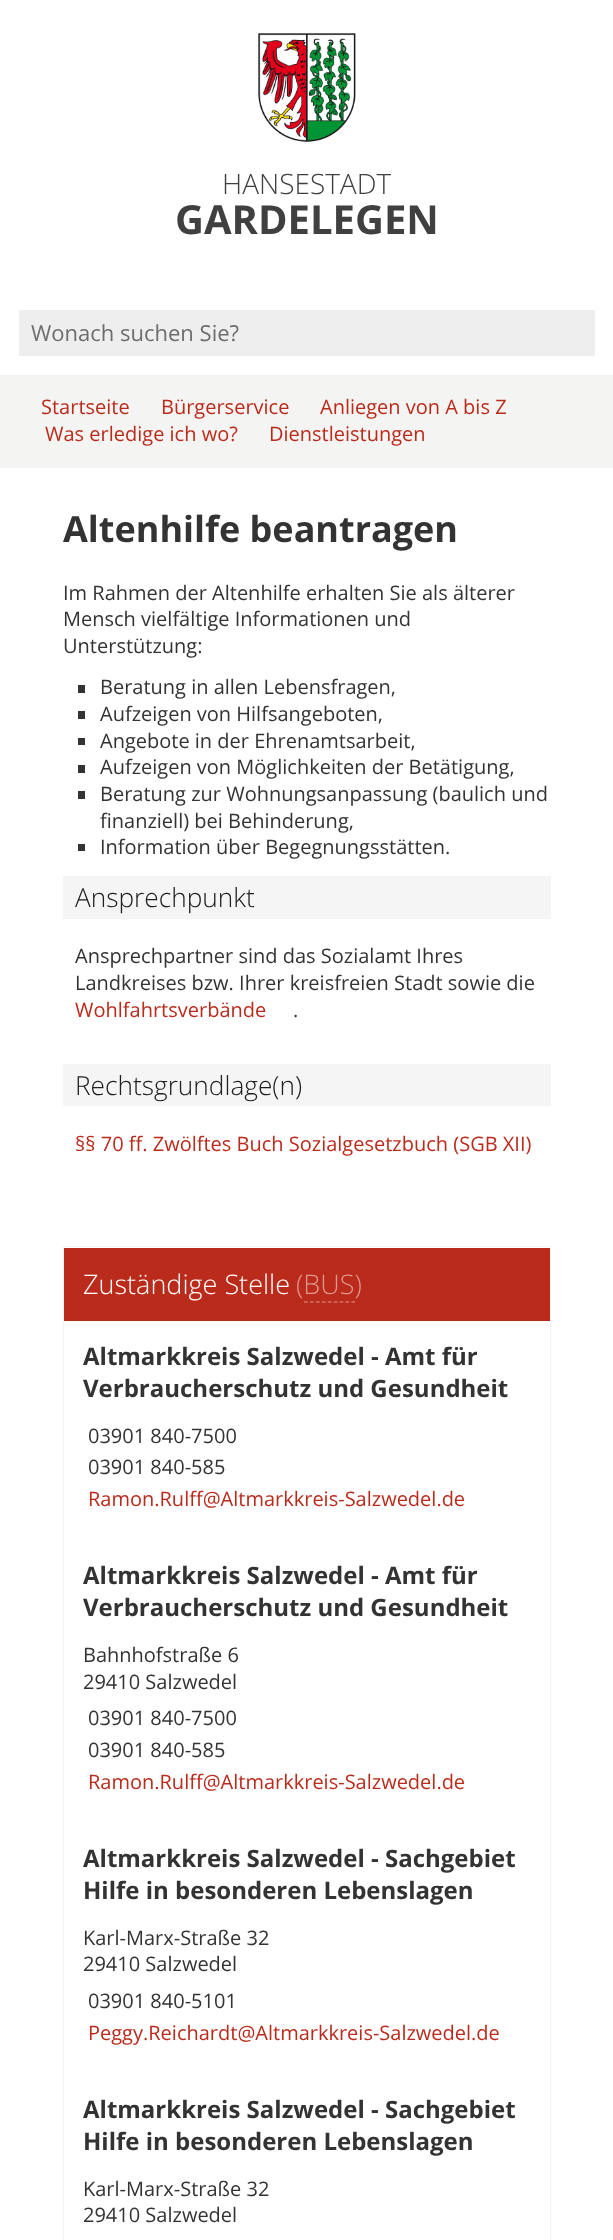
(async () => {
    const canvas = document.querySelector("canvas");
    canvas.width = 613;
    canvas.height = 2240;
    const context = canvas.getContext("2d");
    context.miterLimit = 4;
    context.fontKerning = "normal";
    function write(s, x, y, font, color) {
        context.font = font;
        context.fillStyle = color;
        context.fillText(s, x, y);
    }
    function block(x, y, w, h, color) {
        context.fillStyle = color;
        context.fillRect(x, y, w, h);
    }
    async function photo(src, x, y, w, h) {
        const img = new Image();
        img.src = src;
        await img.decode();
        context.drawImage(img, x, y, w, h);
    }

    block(0, 0, 613, 2240, "rgb(255, 255, 255)");
    await photo("media/1.png", 258, 33, 98, 109);
    write("HANSESTADT", 222, 194, "300 28px Open Sans", "rgb(64, 64, 64)");
    write("GARDELEGEN", 175, 234, "bold 40px Open Sans", "rgb(64, 64, 64)");
    block(19, 310, 576, 46, "rgb(238, 238, 238)");
    write("Wonach suchen Sie?", 31, 341, "22px Open Sans", "rgb(109, 109, 109)");
    block(0, 375, 613, 93, "rgb(244, 244, 242)");
    write("Startseite", 41, 414, "20px Open Sans", "rgb(186, 43, 28)");
    write("Bürgerservice", 161, 414, "20px Open Sans", "rgb(186, 43, 28)");
    write("Anliegen von A bis Z", 320, 414, "20px Open Sans", "rgb(186, 43, 28)");
    write("Was erledige ich wo?", 45, 441, "20px Open Sans", "rgb(186, 43, 28)");
    write("Dienstleistungen", 269, 441, "20px Open Sans", "rgb(186, 43, 28)");
    write("Altenhilfe beantragen", 63, 542, "bold 36px Open Sans", "rgb(51, 51, 51)");
    write("Im Rahmen der Altenhilfe erhalten Sie als älterer", 63, 600, "20px Open Sans", "rgb(51, 51, 51)");
    write("Mensch vielfältige Informationen und", 63, 626, "20px Open Sans", "rgb(51, 51, 51)");
    write("Unterstützung:", 63, 653, "20px Open Sans", "rgb(51, 51, 51)");
    block(78, 685, 7, 8, "rgb(51, 51, 51)");
    write("Beratung in allen Lebensfragen,", 100, 694, "20px Open Sans", "rgb(51, 51, 51)");
    block(78, 711, 7, 8, "rgb(51, 51, 51)");
    write("Aufzeigen von Hilfsangeboten,", 100, 721, "20px Open Sans", "rgb(51, 51, 51)");
    block(78, 738, 7, 7, "rgb(51, 51, 51)");
    write("Angebote in der Ehrenamtsarbeit,", 100, 748, "20px Open Sans", "rgb(51, 51, 51)");
    block(78, 765, 7, 8, "rgb(51, 51, 51)");
    write("Aufzeigen von Möglichkeiten der Betätigung,", 100, 774, "20px Open Sans", "rgb(51, 51, 51)");
    block(78, 791, 7, 8, "rgb(51, 51, 51)");
    write("Beratung zur Wohnungsanpassung (baulich und", 100, 801, "20px Open Sans", "rgb(51, 51, 51)");
    write("finanziell) bei Behinderung,", 100, 828, "20px Open Sans", "rgb(51, 51, 51)");
    block(78, 844, 7, 7, "rgb(51, 51, 51)");
    write("Information über Begegnungsstätten.", 100, 854, "20px Open Sans", "rgb(51, 51, 51)");
    block(63, 876, 488, 43, "rgb(245, 245, 245)");
    write("Ansprechpunkt", 75, 907, "300 26.25px Open Sans", "rgb(32, 32, 32)");
    write("Ansprechpartner sind das Sozialamt Ihres", 75, 963, "20px Open Sans", "rgb(51, 51, 51)");
    write("Landkreises bzw. Ihrer kreisfreien Stadt sowie die", 75, 990, "20px Open Sans", "rgb(51, 51, 51)");
    write("Wohlfahrtsverbände", 75, 1017, "20px Open Sans", "rgb(186, 43, 28)");
    write(".", 293, 1017, "20px Open Sans", "rgb(51, 51, 51)");
    block(63, 1064, 488, 42, "rgb(245, 245, 245)");
    write("Rechtsgrundlage(n)", 75, 1095, "300 26.25px Open Sans", "rgb(32, 32, 32)");
    write("§§ 70 ff. Zwölftes Buch Sozialgesetzbuch (SGB XII)", 75, 1151, "20px Open Sans", "rgb(186, 43, 28)");
    context.strokeStyle = "rgb(244, 244, 242)";
    context.strokeRect(63.5, 1246.5, 487, 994);
    block(64, 1248, 486, 73, "rgb(186, 43, 28)");
    write("Zuständige Stelle", 83, 1294, "300 27px Open Sans", "rgb(255, 255, 255)");
    write("(BUS)", 296, 1294, "300 27px Open Sans", "rgb(221, 149, 142)");
    context.beginPath();
    context.moveTo(304, 1302);
    context.lineTo(355, 1302);
    context.strokeStyle = "rgb(221, 149, 142)";
    context.lineWidth = 1.2;
    context.setLineDash([3.75, 2.19]);
    context.stroke();
    write("Altmarkkreis Salzwedel - Amt für", 83, 1365, "bold 24px Open Sans", "rgb(51, 51, 51)");
    write("Verbraucherschutz und Gesundheit", 83, 1397, "bold 24px Open Sans", "rgb(51, 51, 51)");
    write("03901 840-7500", 88, 1443, "20px Open Sans", "rgb(51, 51, 51)");
    write("03901 840-585", 88, 1474, "20px Open Sans", "rgb(51, 51, 51)");
    write("Ramon.Rulff@Altmarkkreis-Salzwedel.de", 88, 1506, "20px Open Sans", "rgb(186, 43, 28)");
    write("Altmarkkreis Salzwedel - Amt für", 83, 1584, "bold 24px Open Sans", "rgb(51, 51, 51)");
    write("Verbraucherschutz und Gesundheit", 83, 1616, "bold 24px Open Sans", "rgb(51, 51, 51)");
    write("Bahnhofstraße 6", 83, 1662, "20px Open Sans", "rgb(51, 51, 51)");
    write("29410 Salzwedel", 83, 1689, "20px Open Sans", "rgb(51, 51, 51)");
    write("03901 840-7500", 88, 1725, "20px Open Sans", "rgb(51, 51, 51)");
    write("03901 840-585", 88, 1757, "20px Open Sans", "rgb(51, 51, 51)");
    write("Ramon.Rulff@Altmarkkreis-Salzwedel.de", 88, 1789, "20px Open Sans", "rgb(186, 43, 28)");
    write("Altmarkkreis Salzwedel - Sachgebiet", 83, 1867, "bold 24px Open Sans", "rgb(51, 51, 51)");
    write("Hilfe in besonderen Lebenslagen", 83, 1899, "bold 24px Open Sans", "rgb(51, 51, 51)");
    write("Karl-Marx-Straße 32", 83, 1945, "20px Open Sans", "rgb(51, 51, 51)");
    write("29410 Salzwedel", 83, 1971, "20px Open Sans", "rgb(51, 51, 51)");
    write("03901 840-5101", 88, 2008, "20px Open Sans", "rgb(51, 51, 51)");
    write("Peggy.Reichardt@Altmarkkreis-Salzwedel.de", 88, 2040, "20px Open Sans", "rgb(186, 43, 28)");
    write("Altmarkkreis Salzwedel - Sachgebiet", 83, 2118, "bold 24px Open Sans", "rgb(51, 51, 51)");
    write("Hilfe in besonderen Lebenslagen", 83, 2150, "bold 24px Open Sans", "rgb(51, 51, 51)");
    write("Karl-Marx-Straße 32", 83, 2196, "20px Open Sans", "rgb(51, 51, 51)");
    write("29410 Salzwedel", 83, 2222, "20px Open Sans", "rgb(51, 51, 51)");
})();
